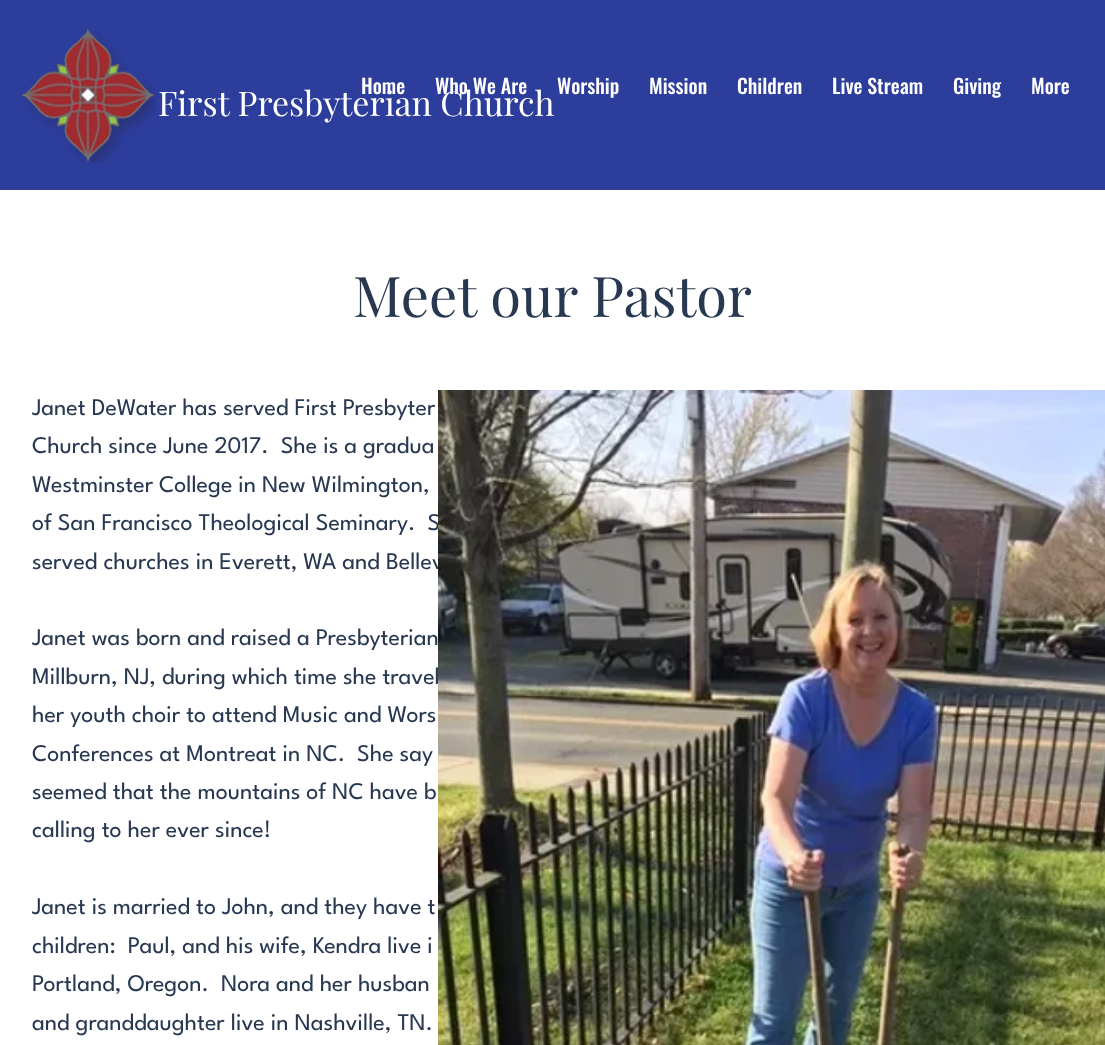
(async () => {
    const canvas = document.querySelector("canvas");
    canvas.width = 1105;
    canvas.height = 1045;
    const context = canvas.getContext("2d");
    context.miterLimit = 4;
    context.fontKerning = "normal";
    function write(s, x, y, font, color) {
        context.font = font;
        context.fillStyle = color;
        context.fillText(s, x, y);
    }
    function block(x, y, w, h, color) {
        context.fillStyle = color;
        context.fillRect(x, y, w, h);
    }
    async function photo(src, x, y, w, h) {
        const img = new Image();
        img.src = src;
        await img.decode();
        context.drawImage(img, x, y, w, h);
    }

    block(0, 0, 1105, 1045, "rgb(255, 255, 255)");
    block(0, 0, 1105, 190, "rgb(45, 61, 156)");
    await photo("media/1.png", 20, 27, 136, 136);
    write("First Presbyterian Church", 158, 116, "34px Playfair Display", "rgb(255, 255, 255)");
    write("Home", 361, 94, "500 20px Oswald", "rgb(255, 255, 255)");
    write("Who We Are", 435, 94, "500 20px Oswald", "rgb(255, 255, 255)");
    write("Worship", 557, 94, "500 20px Oswald", "rgb(255, 255, 255)");
    write("Mission", 649, 94, "500 20px Oswald", "rgb(255, 255, 255)");
    write("Children", 737, 94, "500 20px Oswald", "rgb(255, 255, 255)");
    write("Live Stream", 832, 94, "500 20px Oswald", "rgb(255, 255, 255)");
    write("Giving", 953, 94, "500 20px Oswald", "rgb(255, 255, 255)");
    write("More", 1031, 94, "500 20px Oswald", "rgb(255, 255, 255)");
    write("Meet our Pastor", 353, 317, "56px Playfair Display", "rgb(40, 56, 81)");
    write("Janet DeWater has served First Presbyter", 32, 415, "24px League Spartan", "rgb(40, 56, 81)");
    write("Church since June 2017.  She is a gradua", 32, 453, "24px League Spartan", "rgb(40, 56, 81)");
    write("Westminster College in New Wilmington,", 32, 492, "24px League Spartan", "rgb(40, 56, 81)");
    write("of San Francisco Theological Seminary.  S", 32, 530, "24px League Spartan", "rgb(40, 56, 81)");
    write("served churches in Everett, WA and Bellev", 32, 569, "24px League Spartan", "rgb(40, 56, 81)");
    write("Janet was born and raised a Presbyterian", 32, 645, "24px League Spartan", "rgb(40, 56, 81)");
    write("Millburn, NJ, during which time she travel", 32, 684, "24px League Spartan", "rgb(40, 56, 81)");
    write("her youth choir to attend Music and Wors", 32, 722, "24px League Spartan", "rgb(40, 56, 81)");
    write("Conferences at Montreat in NC.  She say", 32, 761, "24px League Spartan", "rgb(40, 56, 81)");
    write("seemed that the mountains of NC have b", 32, 799, "24px League Spartan", "rgb(40, 56, 81)");
    write("calling to her ever since!", 32, 837, "24px League Spartan", "rgb(40, 56, 81)");
    write("Janet is married to John, and they have t", 32, 914, "24px League Spartan", "rgb(40, 56, 81)");
    write("children:  Paul, and his wife, Kendra live i", 32, 953, "24px League Spartan", "rgb(40, 56, 81)");
    write("Portland, Oregon.  Nora and her husban", 32, 991, "24px League Spartan", "rgb(40, 56, 81)");
    write("and granddaughter live in Nashville, TN.", 32, 1030, "24px League Spartan", "rgb(40, 56, 81)");
    await photo("media/2.png", 438, 390, 667, 655);
})();
